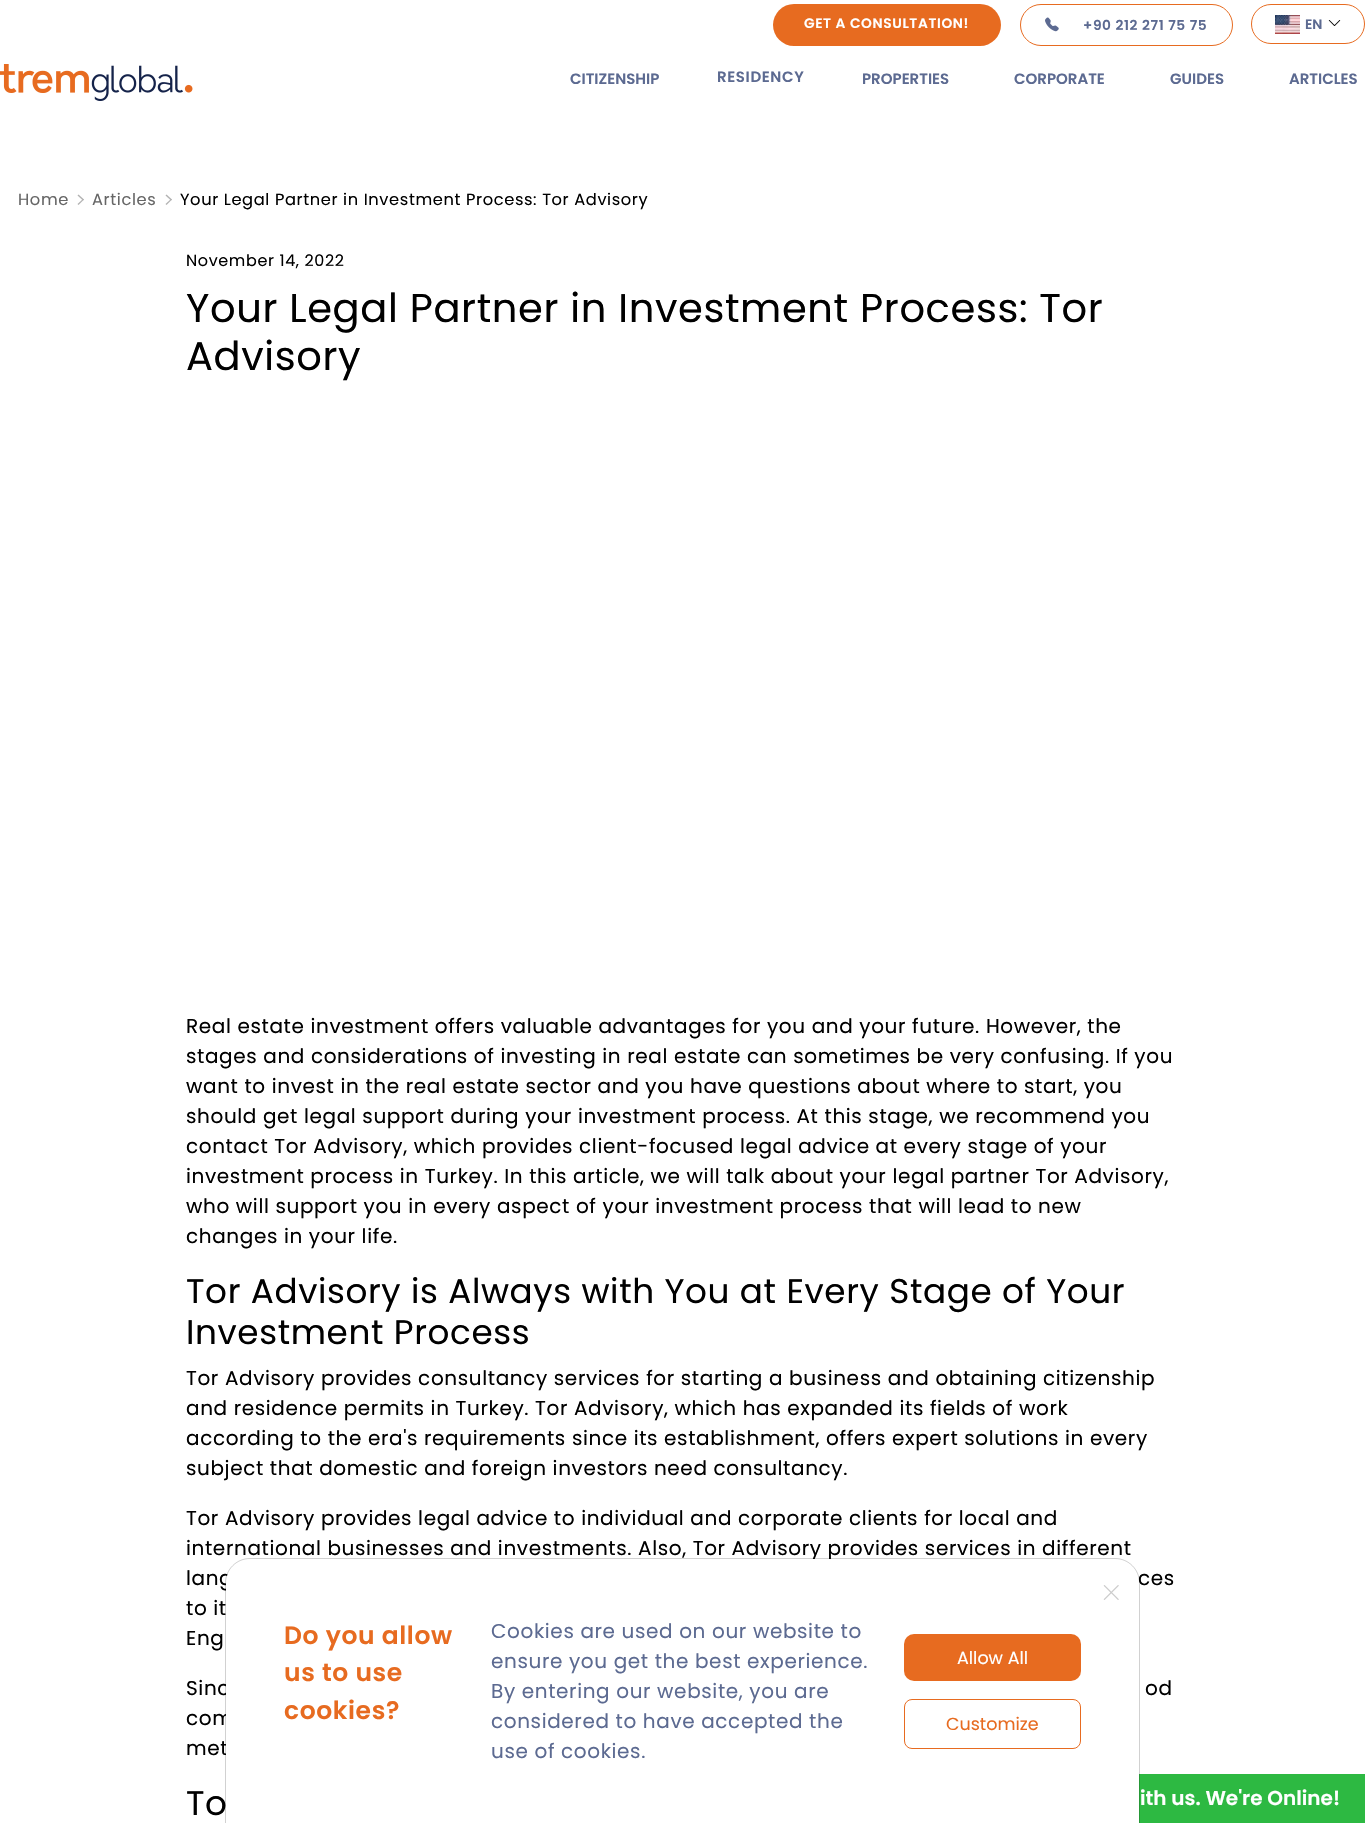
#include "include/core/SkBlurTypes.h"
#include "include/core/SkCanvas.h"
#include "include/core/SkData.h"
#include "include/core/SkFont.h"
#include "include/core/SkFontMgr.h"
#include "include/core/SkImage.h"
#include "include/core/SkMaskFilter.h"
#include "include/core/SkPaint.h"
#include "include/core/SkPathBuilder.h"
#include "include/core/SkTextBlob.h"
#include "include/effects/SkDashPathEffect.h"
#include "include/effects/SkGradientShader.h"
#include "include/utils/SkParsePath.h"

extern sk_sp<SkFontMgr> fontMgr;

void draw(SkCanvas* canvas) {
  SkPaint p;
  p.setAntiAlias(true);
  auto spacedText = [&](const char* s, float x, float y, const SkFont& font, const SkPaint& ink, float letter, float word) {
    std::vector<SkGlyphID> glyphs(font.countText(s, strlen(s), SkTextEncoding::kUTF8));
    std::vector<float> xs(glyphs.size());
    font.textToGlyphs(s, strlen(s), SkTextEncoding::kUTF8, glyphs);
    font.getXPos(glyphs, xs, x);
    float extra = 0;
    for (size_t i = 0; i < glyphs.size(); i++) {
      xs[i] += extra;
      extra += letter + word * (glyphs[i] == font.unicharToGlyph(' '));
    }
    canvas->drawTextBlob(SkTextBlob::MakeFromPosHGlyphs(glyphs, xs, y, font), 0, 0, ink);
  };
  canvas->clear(SK_ColorWHITE);
  p.setColor(SkColorSetRGB(231, 107, 32));
  canvas->drawRoundRect(SkRect::MakeLTRB(773, 4, 1001, 46), 21, 21, p);
  p.setStyle(SkPaint::kStroke_Style);
  p.setStrokeWidth(1);
  canvas->drawRoundRect(SkRect::MakeLTRB(1020.5f, 4.5f, 1232.5f, 45.5f), 20.5f, 20.5f, p);
  canvas->drawImageRect(SkImages::DeferredFromEncodedData(SkData::MakeFromFileName("images/1.png")), SkRect::MakeLTRB(1045, 17, 1059, 32), SkSamplingOptions());
  canvas->drawRoundRect(SkRect::MakeLTRB(1251.5f, 4.5f, 1364.5f, 43.5f), 19.5f, 19.5f, p);
  canvas->drawImageRect(SkImages::DeferredFromEncodedData(SkData::MakeFromFileName("images/2.png")), SkRect::MakeLTRB(1275, 15, 1300, 34), SkSamplingOptions());
  canvas->drawImageRect(SkImages::DeferredFromEncodedData(SkData::MakeFromFileName("images/3.png")), SkRect::MakeLTRB(1328, 20, 1341, 26), SkSamplingOptions());
  canvas->drawImageRect(SkImages::DeferredFromEncodedData(SkData::MakeFromFileName("images/4.png")), SkRect::MakeLTRB(0, 64, 193, 101), SkSamplingOptions());
  p.setStyle(SkPaint::kFill_Style);
  p.setColor(SkColorSetRGB(178, 178, 178));
  canvas->drawPath(SkPathBuilder().moveTo(78.5f, 194.5f).lineTo(84, 199.5f).lineTo(83, 200.5f).lineTo(77.5f, 195.5f).close().detach(), p);
  canvas->drawPath(SkPathBuilder().moveTo(83, 199).lineTo(84, 199.5f).lineTo(78.5f, 205).lineTo(77.5f, 204).close().detach(), p);
  canvas->drawPath(SkPathBuilder().moveTo(166.5f, 194.5f).lineTo(172, 199.5f).lineTo(171, 200.5f).lineTo(165.5f, 195.5f).close().detach(), p);
  canvas->drawPath(SkPathBuilder().moveTo(171, 199).lineTo(172, 199.5f).lineTo(166.5f, 205).lineTo(165.5f, 204).close().detach(), p);
  p.setColor(SkColorSetRGB(45, 185, 66));
  canvas->drawRect(SkRect::MakeLTRB(1139, 1774, 1365, 1823), p);
  SkFont font1(fontMgr->matchFamilyStyle("Poppins", SkFontStyle(600, SkFontStyle::kNormal_Width, SkFontStyle::kUpright_Slant)), 13.75f);
  font1.setSubpixel(true);
  p.setColor(SK_ColorWHITE);
  spacedText("GET A CONSULTATION!", 804, 28, font1, p, 0.62f, 0);
  p.setColor(SkColorSetRGB(92, 106, 145));
  spacedText("+90 212 271 75 75", 1083, 30, font1, p, 0.62f, 0);
  canvas->drawString("EN", 1305, 29, font1, p);
  SkFont font2(fontMgr->matchFamilyStyle("Poppins", SkFontStyle(600, SkFontStyle::kNormal_Width, SkFontStyle::kUpright_Slant)), 15);
  font2.setSubpixel(true);
  canvas->drawString("CITIZENSHIP", 570, 84, font2, p);
  spacedText("RESIDENCY", 717, 82, font2, p, 0.62f, 0);
  canvas->drawString("PROPERTIES", 862, 84, font2, p);
  canvas->drawString("CORPORATE", 1014, 84, font2, p);
  canvas->drawString("GUIDES", 1170, 84, font2, p);
  canvas->drawString("ARTICLES", 1289, 84, font2, p);
  SkFont font3(fontMgr->matchFamilyStyle("Poppins", SkFontStyle::Normal()), 16.25f);
  font3.setSubpixel(true);
  p.setColor(SkColorSetRGB(102, 102, 102));
  spacedText("Home", 18, 205, font3, p, 0.62f, 0);
  spacedText("Articles", 92, 205, font3, p, 0.62f, 0);
  p.setColor(SK_ColorBLACK);
  spacedText("Your Legal Partner in Investment Process: Tor Advisory", 180, 205, font3, p, 0.62f, 0);
  SkFont font4(fontMgr->matchFamilyStyle("Poppins", SkFontStyle::Normal()), 16);
  font4.setSubpixel(true);
  spacedText("November 14, 2022", 186, 266, font4, p, 0.62f, 0);
  SkFont font5(fontMgr->matchFamilyStyle("Poppins", SkFontStyle::Normal()), 40);
  font5.setSubpixel(true);
  spacedText("Your Legal Partner in Investment Process: Tor", 186, 322, font5, p, 0.62f, 0);
  spacedText("Advisory", 186, 370, font5, p, 0.62f, 0);
  SkFont font6(fontMgr->matchFamilyStyle("Poppins", SkFontStyle::Normal()), 20);
  font6.setSubpixel(true);
  spacedText("Real estate investment offers valuable advantages for you and your future. However, the", 186, 1033, font6, p, 0.62f, 0);
  spacedText("stages and considerations of investing in real estate can sometimes be very confusing. If you", 186, 1063, font6, p, 0.62f, 0);
  spacedText("want to invest in the real estate sector and you have questions about where to start, you", 186, 1093, font6, p, 0.62f, 0);
  spacedText("should get legal support during your investment process. At this stage, we recommend you", 186, 1123, font6, p, 0.62f, 0);
  spacedText("contact Tor Advisory, which provides client-focused legal advice at every stage of your", 186, 1153, font6, p, 0.62f, 0);
  spacedText("investment process in Turkey. In this article, we will talk about your legal partner Tor Advisory,", 186, 1183, font6, p, 0.62f, 0);
  spacedText("who will support you in every aspect of your investment process that will lead to new", 186, 1213, font6, p, 0.62f, 0);
  spacedText("changes in your life.", 186, 1243, font6, p, 0.62f, 0);
  SkFont font7(fontMgr->matchFamilyStyle("Poppins", SkFontStyle::Normal()), 34.2f);
  font7.setSubpixel(true);
  spacedText("Tor Advisory is Always with You at Every Stage of Your", 186, 1303, font7, p, 0.62f, 0);
  spacedText("Investment Process", 186, 1344, font7, p, 0.62f, 0);
  spacedText("Tor Advisory provides consultancy services for starting a business and obtaining citizenship", 186, 1385, font6, p, 0.62f, 0);
  spacedText("and residence permits in Turkey. Tor Advisory, which has expanded its fields of work", 186, 1415, font6, p, 0.62f, 0);
  spacedText("according to the era's requirements since its establishment, offers expert solutions in every", 186, 1445, font6, p, 0.62f, 0);
  spacedText("subject that domestic and foreign investors need consultancy.", 186, 1475, font6, p, 0.62f, 0);
  spacedText("Tor Advisory provides legal advice to individual and corporate clients for local and", 186, 1525, font6, p, 0.62f, 0);
  spacedText("international businesses and investments. Also, Tor Advisory provides services in different", 186, 1555, font6, p, 0.62f, 0);
  spacedText("lang", 186, 1585, font6, p, 0.62f, 0);
  spacedText("ces", 1138, 1585, font6, p, 0.62f, 0);
  spacedText("to it", 186, 1615, font6, p, 0.62f, 0);
  spacedText("Eng", 186, 1645, font6, p, 0.62f, 0);
  spacedText("Sinc", 186, 1695, font6, p, 0.62f, 0);
  spacedText("od", 1145, 1695, font6, p, 0.62f, 0);
  spacedText("com", 186, 1725, font6, p, 0.62f, 0);
  spacedText("met", 186, 1755, font6, p, 0.62f, 0);
  spacedText("To", 186, 1815, font7, p, 0.62f, 0);
  p.setColor(SK_ColorWHITE);
  canvas->drawPath(SkPathBuilder().moveTo(250, 1559).lineTo(1115, 1559).cubicTo(1128.5f, 1559, 1139, 1569.5f, 1139, 1583).lineTo(1139, 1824).lineTo(226, 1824).lineTo(226, 1583).cubicTo(226, 1569.5f, 236.5f, 1559, 250, 1559).close().detach(), p);
  p.setStyle(SkPaint::kStroke_Style);
  p.setColor(SkColorSetARGB(46, 0, 0, 0));
  canvas->drawPath(SkPathBuilder().moveTo(250, 1558.5f).lineTo(1115, 1558.5f).cubicTo(1128.5f, 1558.5f, 1139.5f, 1569.5f, 1139.5f, 1583).lineTo(1139.5f, 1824.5f).lineTo(225.5f, 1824.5f).lineTo(225.5f, 1583).cubicTo(225.5f, 1569.5f, 236.5f, 1558.5f, 250, 1558.5f).close().detach(), p);
  canvas->drawImageRect(SkImages::DeferredFromEncodedData(SkData::MakeFromFileName("images/5.png")), SkRect::MakeLTRB(1103, 1585, 1119, 1600), SkSamplingOptions());
  SkFont font8(fontMgr->matchFamilyStyle("Poppins", SkFontStyle(600, SkFontStyle::kNormal_Width, SkFontStyle::kUpright_Slant)), 25);
  font8.setSubpixel(true);
  p.setStyle(SkPaint::kFill_Style);
  p.setColor(SkColorSetRGB(231, 107, 32));
  spacedText("Do you allow", 284, 1644, font8, p, 0.62f, 0);
  spacedText("us to use", 284, 1681, font8, p, 0.62f, 0);
  spacedText("cookies?", 284, 1719, font8, p, 0.62f, 0);
  p.setColor(SkColorSetRGB(92, 106, 145));
  spacedText("Cookies are used on our website to", 491, 1638, font6, p, 0.62f, 0);
  spacedText("ensure you get the best experience.", 491, 1668, font6, p, 0.62f, 0);
  spacedText("By entering our website, you are", 491, 1698, font6, p, 0.62f, 0);
  spacedText("considered to have accepted the", 491, 1728, font6, p, 0.62f, 0);
  spacedText("use of cookies.", 491, 1758, font6, p, 0.62f, 0);
  p.setColor(SkColorSetRGB(231, 107, 32));
  canvas->drawRoundRect(SkRect::MakeLTRB(904, 1634, 1081, 1681), 10, 10, p);
  SkFont font9(fontMgr->matchFamilyStyle("Poppins", SkFontStyle::Normal()), 17.5f);
  font9.setSubpixel(true);
  p.setColor(SK_ColorWHITE);
  canvas->drawString("Allow All", 957, 1664, font9, p);
  p.setStyle(SkPaint::kStroke_Style);
  p.setColor(SkColorSetRGB(231, 107, 32));
  canvas->drawRoundRect(SkRect::MakeLTRB(904.5f, 1699.5f, 1080.5f, 1748.5f), 7.5f, 7.5f, p);
  p.setStyle(SkPaint::kFill_Style);
  canvas->drawString("Customize", 946, 1730, font9, p);
  SkFont font10(fontMgr->matchFamilyStyle("Poppins", SkFontStyle(600, SkFontStyle::kNormal_Width, SkFontStyle::kUpright_Slant)), 20);
  font10.setSubpixel(true);
  p.setColor(SK_ColorWHITE);
  canvas->drawString("ith us. We're Online!", 1140, 1805, font10, p);
}
